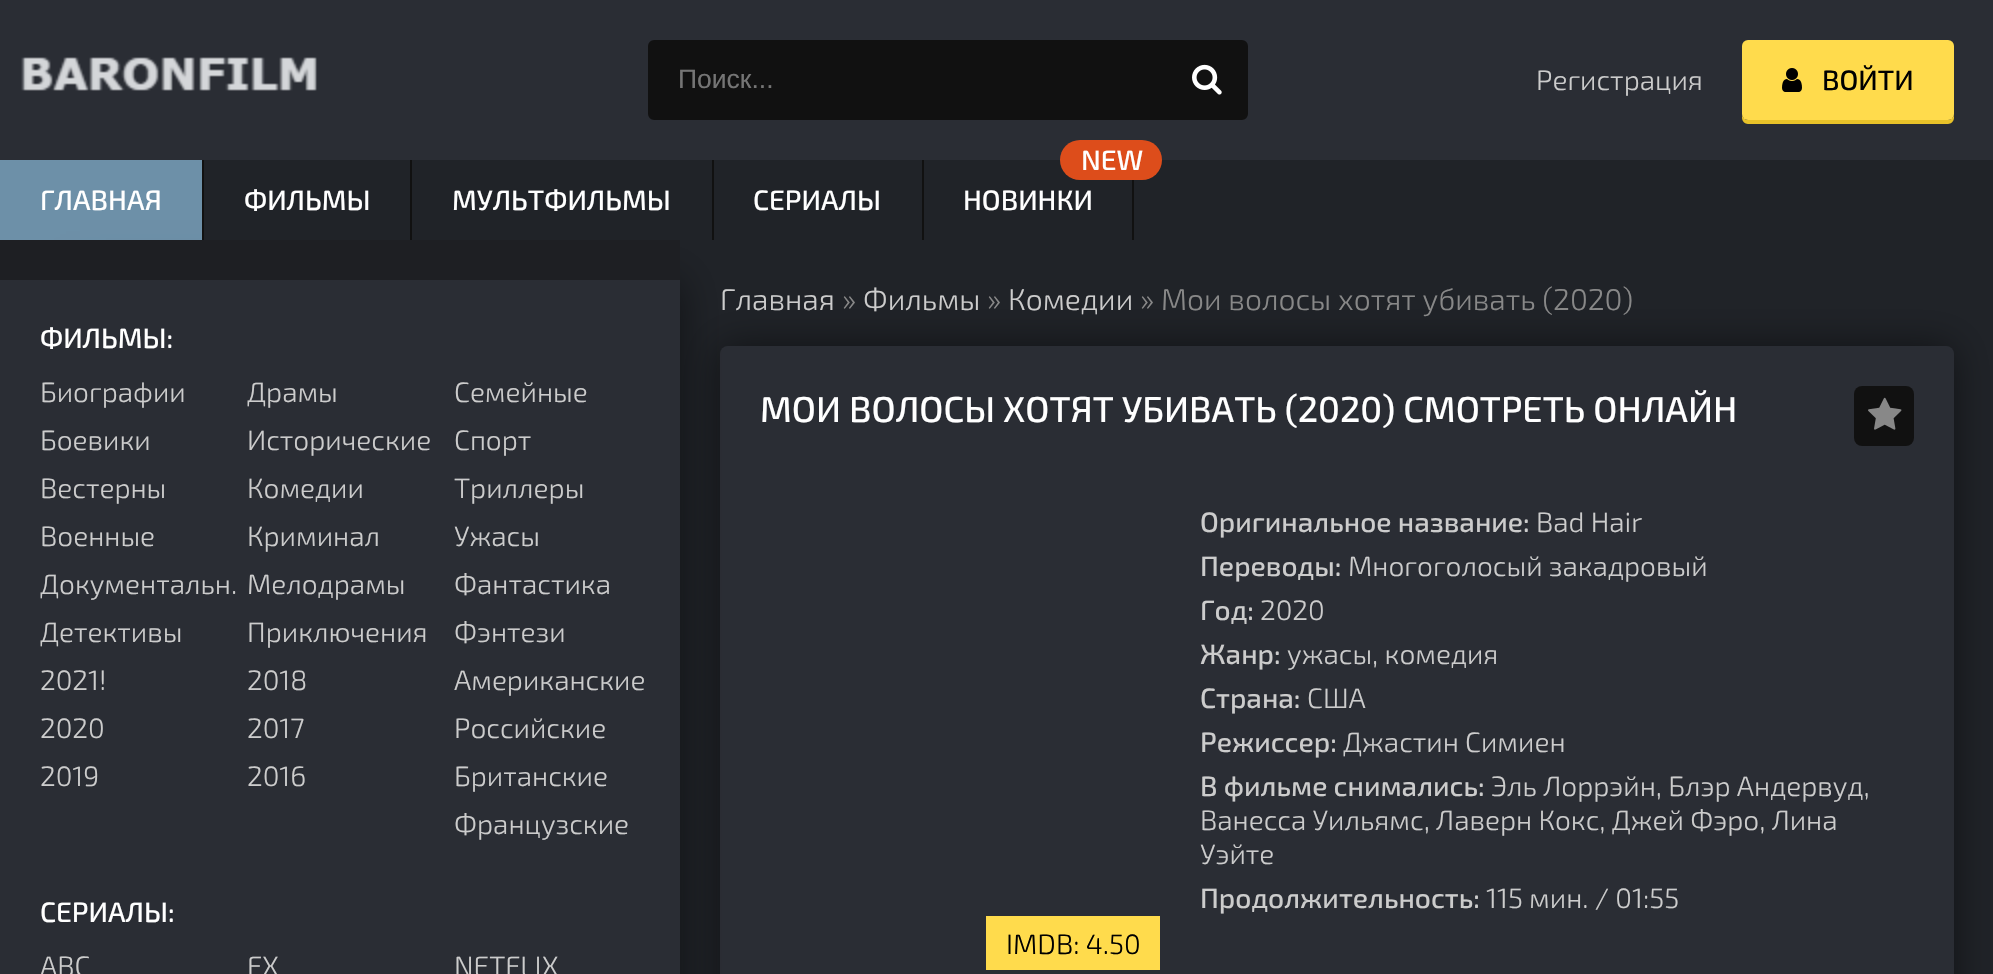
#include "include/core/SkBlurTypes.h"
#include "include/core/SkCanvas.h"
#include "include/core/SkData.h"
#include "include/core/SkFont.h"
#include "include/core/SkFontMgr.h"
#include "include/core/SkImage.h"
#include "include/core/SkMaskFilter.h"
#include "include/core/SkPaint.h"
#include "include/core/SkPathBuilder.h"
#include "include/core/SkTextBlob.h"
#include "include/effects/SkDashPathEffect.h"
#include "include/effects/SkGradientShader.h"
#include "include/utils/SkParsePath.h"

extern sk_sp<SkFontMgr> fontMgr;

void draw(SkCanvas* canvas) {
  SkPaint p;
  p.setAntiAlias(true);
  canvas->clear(SkColorSetRGB(32, 35, 40));
  p.setColor(SkColorSetRGB(42, 45, 52));
  canvas->drawRect(SkRect::MakeLTRB(0, 0, 1993, 160), p);
  canvas->drawImageRect(SkImages::DeferredFromEncodedData(SkData::MakeFromFileName("images/1.png")), SkRect::MakeLTRB(21, 57, 317, 91), SkSamplingOptions());
  p.setColor(SkColorSetRGB(17, 17, 17));
  canvas->drawRoundRect(SkRect::MakeLTRB(649, 41, 1247, 119), 5, 5, p);
  p.setStyle(SkPaint::kStroke_Style);
  p.setStrokeWidth(2);
  canvas->drawRoundRect(SkRect::MakeLTRB(649, 41, 1247, 119), 5, 5, p);
  canvas->drawImageRect(SkImages::DeferredFromEncodedData(SkData::MakeFromFileName("images/2.png")), SkRect::MakeLTRB(1192, 64, 1222, 95), SkSamplingOptions());
  p.setStyle(SkPaint::kFill_Style);
  p.setColor(SkColorSetRGB(232, 194, 41));
  canvas->drawPath(SkPathBuilder().moveTo(1742, 114).lineTo(1742, 118).cubicTo(1742, 121, 1745, 124, 1748, 124).lineTo(1948, 124).cubicTo(1951, 124, 1954, 121, 1954, 118).lineTo(1954, 114).cubicTo(1954, 117, 1951, 120, 1948, 120).lineTo(1748, 120).cubicTo(1745, 120, 1742, 117, 1742, 114).close().detach(), p);
  p.setColor(SkColorSetRGB(255, 219, 76));
  canvas->drawRoundRect(SkRect::MakeLTRB(1742, 40, 1954, 120), 6, 6, p);
  canvas->drawImageRect(SkImages::DeferredFromEncodedData(SkData::MakeFromFileName("images/3.png")), SkRect::MakeLTRB(1782, 68, 1802, 92), SkSamplingOptions());
  p.setColor(SkColorSetRGB(17, 17, 17));
  canvas->drawRect(SkRect::MakeLTRB(202, 160, 204, 240), p);
  p.setColor(SkColorSetRGB(109, 144, 168));
  canvas->drawRect(SkRect::MakeLTRB(0, 160, 202, 240), p);
  p.setColor(SkColorSetRGB(17, 17, 17));
  canvas->drawRect(SkRect::MakeLTRB(410, 160, 412, 240), p);
  canvas->drawRect(SkRect::MakeLTRB(712, 160, 714, 240), p);
  canvas->drawRect(SkRect::MakeLTRB(922, 160, 924, 240), p);
  canvas->drawRect(SkRect::MakeLTRB(1132, 180, 1134, 240), p);
  p.setColor(SkColorSetRGB(221, 77, 27));
  canvas->drawRoundRect(SkRect::MakeLTRB(1060, 140, 1162, 180), 20, 20, p);
  p.setColor(SkColorSetARGB(128, 0, 0, 0));
  p.setMaskFilter(SkMaskFilter::MakeBlur(kNormal_SkBlurStyle, 20));
  canvas->drawRoundRect(SkRect::MakeLTRB(720, 346, 1954, 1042), 8, 8, p);
  p.setMaskFilter(nullptr);
  p.setColor(SkColorSetRGB(42, 45, 52));
  canvas->drawRoundRect(SkRect::MakeLTRB(720, 346, 1954, 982), 8, 8, p);
  p.setColor(SkColorSetARGB(128, 0, 0, 0));
  p.setMaskFilter(SkMaskFilter::MakeBlur(kNormal_SkBlurStyle, 20));
  canvas->drawRect(SkRect::MakeLTRB(80, 280, 680, 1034), p);
  p.setMaskFilter(nullptr);
  p.setColor(SkColorSetRGB(42, 45, 52));
  canvas->drawRect(SkRect::MakeLTRB(0, 280, 680, 974), p);
  p.setColor(SkColorSetRGB(17, 17, 17));
  canvas->drawRoundRect(SkRect::MakeLTRB(1854, 386, 1914, 446), 8, 8, p);
  canvas->drawImageRect(SkImages::DeferredFromEncodedData(SkData::MakeFromFileName("images/4.png")), SkRect::MakeLTRB(1868, 397, 1902, 430), SkSamplingOptions());
  p.setColor(SkColorSetRGB(255, 219, 76));
  canvas->drawRect(SkRect::MakeLTRB(986, 916, 1160, 970), p);
  p.setColor(SkColorSetRGB(30, 31, 35));
  canvas->drawRect(SkRect::MakeLTRB(0, 240, 680, 280), p);
  SkFont font1(fontMgr->matchFamilyStyle("Liberation Sans", SkFontStyle::Normal()), 26.5f);
  font1.setSubpixel(true);
  p.setColor(SkColorSetRGB(117, 117, 117));
  canvas->drawString("Поиск...", 678, 88, font1, p);
  SkFont font2(fontMgr->matchFamilyStyle("Exo 2", SkFontStyle(300, SkFontStyle::kNormal_Width, SkFontStyle::kUpright_Slant)), 28);
  font2.setSubpixel(true);
  p.setColor(SkColorSetRGB(204, 204, 204));
  canvas->drawString("Регистрация", 1536, 90, font2, p);
  SkFont font3(fontMgr->matchFamilyStyle("Exo 2", SkFontStyle(500, SkFontStyle::kNormal_Width, SkFontStyle::kUpright_Slant)), 28);
  font3.setSubpixel(true);
  p.setColor(SK_ColorBLACK);
  canvas->drawString("ВОЙТИ", 1822, 90, font3, p);
  p.setColor(SK_ColorWHITE);
  canvas->drawString("ГЛАВНАЯ", 40, 210, font3, p);
  canvas->drawString("ФИЛЬМЫ", 244, 210, font3, p);
  canvas->drawString("МУЛЬТФИЛЬМЫ", 452, 210, font3, p);
  canvas->drawString("СЕРИАЛЫ", 753, 210, font3, p);
  canvas->drawString("NEW", 1081, 170, font3, p);
  canvas->drawString("НОВИНКИ", 963, 210, font3, p);
  SkFont font4(fontMgr->matchFamilyStyle("Exo 2", SkFontStyle(300, SkFontStyle::kNormal_Width, SkFontStyle::kUpright_Slant)), 30);
  font4.setSubpixel(true);
  p.setColor(SkColorSetRGB(204, 204, 204));
  canvas->drawString("Главная", 720, 310, font4, p);
  p.setColor(SkColorSetRGB(136, 136, 136));
  canvas->drawString("»", 842, 310, font4, p);
  p.setColor(SkColorSetRGB(204, 204, 204));
  canvas->drawString("Фильмы", 863, 310, font4, p);
  p.setColor(SkColorSetRGB(136, 136, 136));
  canvas->drawString("»", 987, 310, font4, p);
  p.setColor(SkColorSetRGB(204, 204, 204));
  canvas->drawString("Комедии", 1008, 310, font4, p);
  p.setColor(SkColorSetRGB(136, 136, 136));
  canvas->drawString("» Мои волосы хотят убивать (2020)", 1140, 310, font4, p);
  SkFont font5(fontMgr->matchFamilyStyle("Exo 2", SkFontStyle(500, SkFontStyle::kNormal_Width, SkFontStyle::kUpright_Slant)), 36);
  font5.setSubpixel(true);
  p.setColor(SK_ColorWHITE);
  canvas->drawString("МОИ ВОЛОСЫ ХОТЯТ УБИВАТЬ (2020) СМОТРЕТЬ ОНЛАЙН", 760, 422, font5, p);
  p.setColor(SkColorSetRGB(204, 204, 204));
  canvas->drawString("Оригинальное название:", 1200, 532, font3, p);
  canvas->drawString("Bad Hair", 1536, 532, font2, p);
  canvas->drawString("Переводы:", 1200, 576, font3, p);
  canvas->drawString("Многоголосый закадровый", 1348, 576, font2, p);
  canvas->drawString("Год:", 1200, 620, font3, p);
  canvas->drawString("2020", 1260, 620, font2, p);
  canvas->drawString("Жанр:", 1200, 664, font3, p);
  canvas->drawString("ужасы, комедия", 1287, 664, font2, p);
  canvas->drawString("Страна:", 1200, 708, font3, p);
  canvas->drawString("США", 1307, 708, font2, p);
  canvas->drawString("Режиссер:", 1200, 752, font3, p);
  canvas->drawString("Джастин Симиен", 1343, 752, font2, p);
  canvas->drawString("В фильме снимались:", 1200, 796, font3, p);
  canvas->drawString("Эль Лоррэйн, Блэр Андервуд,", 1491, 796, font2, p);
  canvas->drawString("Ванесса Уильямс, Лаверн Кокс, Джей Фэро, Лина", 1200, 830, font2, p);
  canvas->drawString("Уэйте", 1200, 864, font2, p);
  canvas->drawString("Продолжительность:", 1200, 908, font3, p);
  canvas->drawString("115 мин. / 01:55", 1486, 908, font2, p);
  p.setColor(SK_ColorBLACK);
  canvas->drawString("IMDB: 4.50", 1006, 954, font2, p);
  p.setColor(SK_ColorWHITE);
  canvas->drawString("ФИЛЬМЫ:", 40, 348, font3, p);
  p.setColor(SkColorSetRGB(204, 204, 204));
  canvas->drawString("Биографии", 40, 402, font2, p);
  canvas->drawString("Боевики", 40, 450, font2, p);
  canvas->drawString("Вестерны", 40, 498, font2, p);
  canvas->drawString("Военные", 40, 546, font2, p);
  canvas->drawString("Документальн.", 40, 594, font2, p);
  canvas->drawString("Детективы", 40, 642, font2, p);
  canvas->drawString("2021!", 40, 690, font2, p);
  canvas->drawString("2020", 40, 738, font2, p);
  canvas->drawString("2019", 40, 786, font2, p);
  canvas->drawString("Драмы", 247, 402, font2, p);
  canvas->drawString("Исторические", 247, 450, font2, p);
  canvas->drawString("Комедии", 247, 498, font2, p);
  canvas->drawString("Криминал", 247, 546, font2, p);
  canvas->drawString("Мелодрамы", 247, 594, font2, p);
  canvas->drawString("Приключения", 247, 642, font2, p);
  canvas->drawString("2018", 247, 690, font2, p);
  canvas->drawString("2017", 247, 738, font2, p);
  canvas->drawString("2016", 247, 786, font2, p);
  canvas->drawString("Семейные", 454, 402, font2, p);
  canvas->drawString("Спорт", 454, 450, font2, p);
  canvas->drawString("Триллеры", 454, 498, font2, p);
  canvas->drawString("Ужасы", 454, 546, font2, p);
  canvas->drawString("Фантастика", 454, 594, font2, p);
  canvas->drawString("Фэнтези", 454, 642, font2, p);
  canvas->drawString("Американские", 454, 690, font2, p);
  canvas->drawString("Российские", 454, 738, font2, p);
  canvas->drawString("Британские", 454, 786, font2, p);
  canvas->drawString("Французские", 454, 834, font2, p);
  p.setColor(SK_ColorWHITE);
  canvas->drawString("СЕРИАЛЫ:", 40, 922, font3, p);
  p.setColor(SkColorSetRGB(204, 204, 204));
  canvas->drawString("ABC", 40, 976, font2, p);
  canvas->drawString("FX", 247, 976, font2, p);
  canvas->drawString("NETFLIX", 454, 976, font2, p);
}
